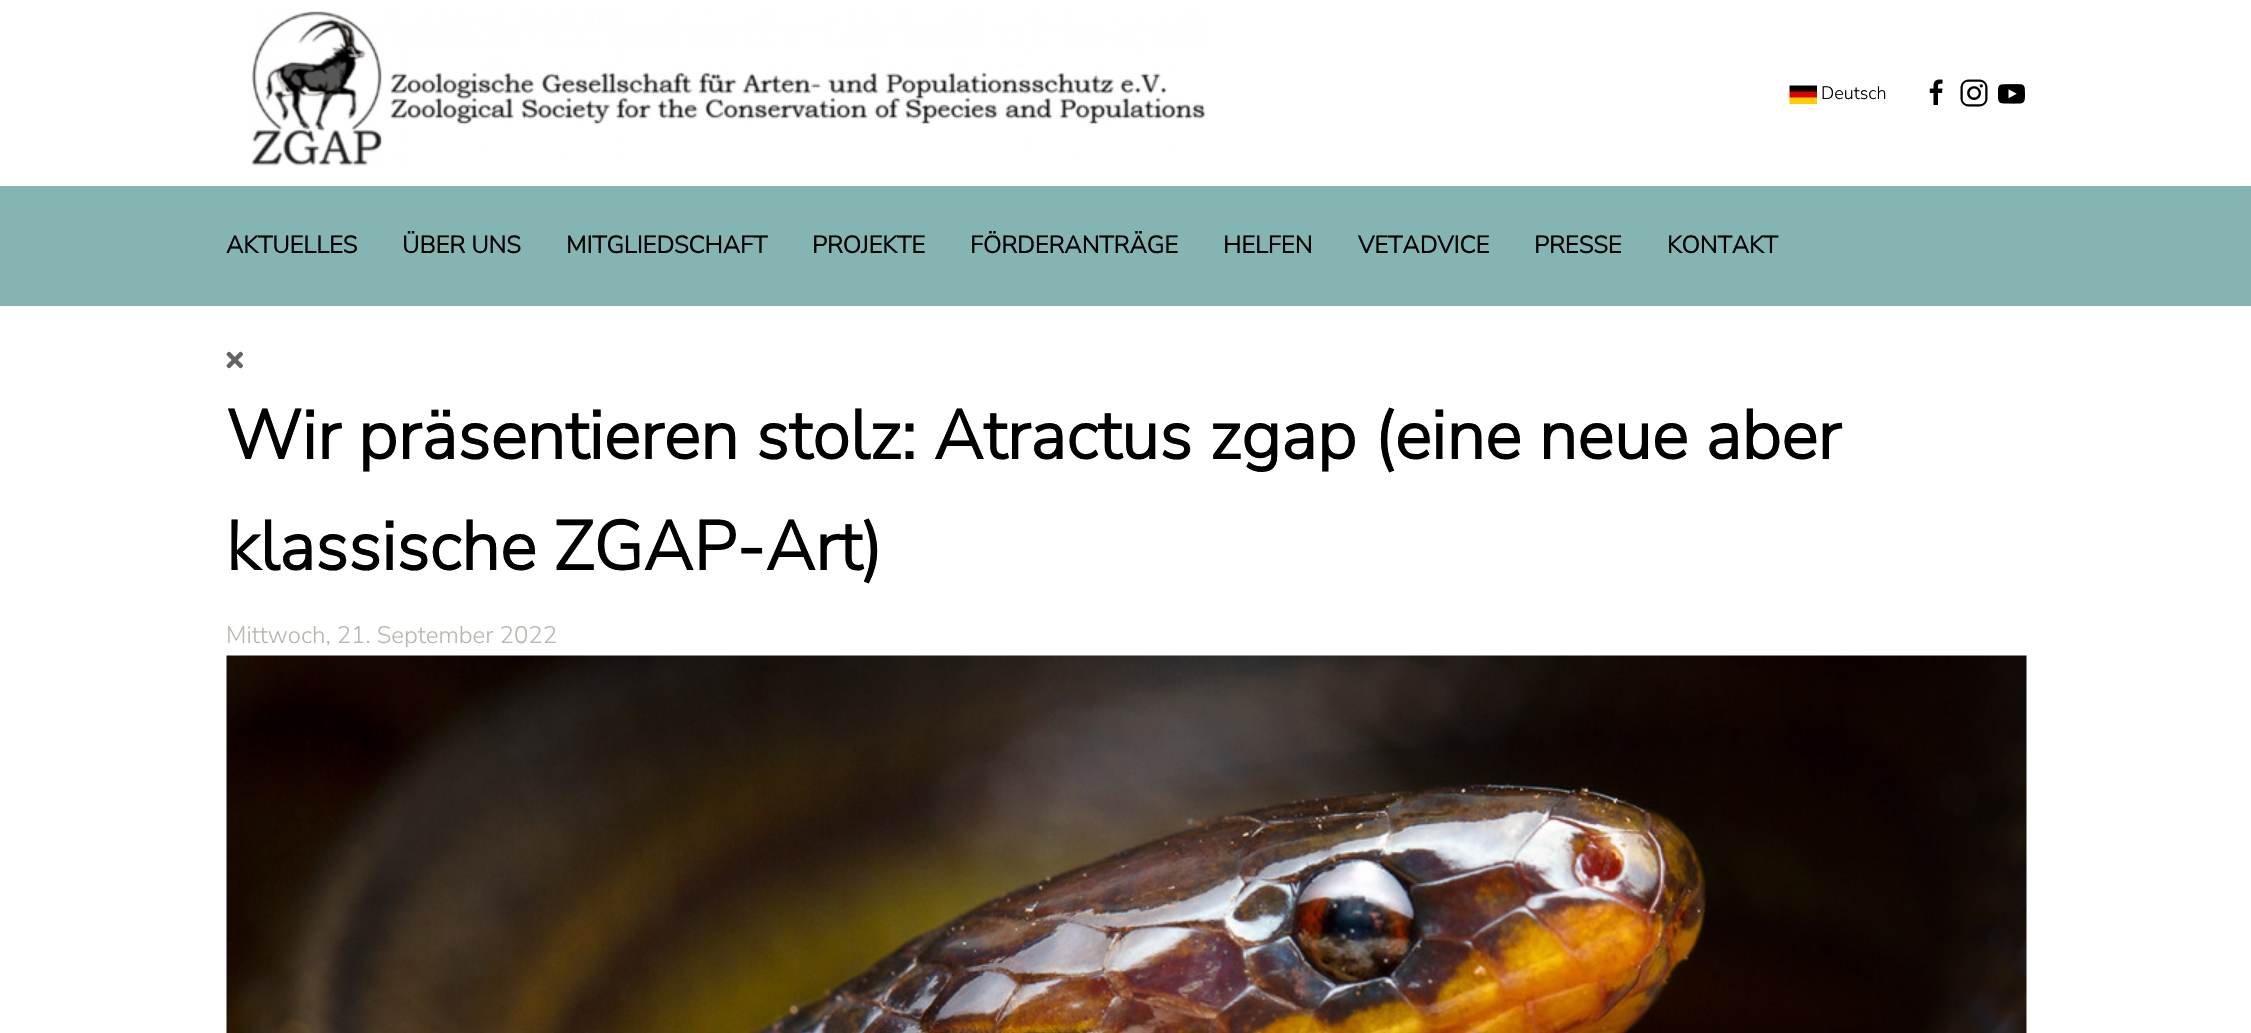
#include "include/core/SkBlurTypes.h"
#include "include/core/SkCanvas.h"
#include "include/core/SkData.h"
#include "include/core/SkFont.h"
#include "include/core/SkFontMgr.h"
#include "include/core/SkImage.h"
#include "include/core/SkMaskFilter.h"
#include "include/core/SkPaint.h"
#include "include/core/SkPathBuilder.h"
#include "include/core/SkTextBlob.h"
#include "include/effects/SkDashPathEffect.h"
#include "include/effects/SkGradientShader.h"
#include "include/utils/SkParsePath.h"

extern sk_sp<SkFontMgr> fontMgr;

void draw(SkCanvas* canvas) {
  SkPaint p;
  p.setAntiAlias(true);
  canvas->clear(SK_ColorWHITE);
  canvas->drawImageRect(SkImages::DeferredFromEncodedData(SkData::MakeFromFileName("images/1.png")), SkRect::MakeLTRB(251, 11, 1205, 166), SkSamplingOptions());
  canvas->drawImageRect(SkImages::DeferredFromEncodedData(SkData::MakeFromFileName("images/2.png")), SkRect::MakeLTRB(1789, 85, 1817, 104), SkSamplingOptions());
  canvas->drawImageRect(SkImages::DeferredFromEncodedData(SkData::MakeFromFileName("images/3.png")), SkRect::MakeLTRB(1929, 79, 1943, 105), SkSamplingOptions());
  canvas->drawImageRect(SkImages::DeferredFromEncodedData(SkData::MakeFromFileName("images/4.png")), SkRect::MakeLTRB(1960, 79, 1988, 107), SkSamplingOptions());
  canvas->drawImageRect(SkImages::DeferredFromEncodedData(SkData::MakeFromFileName("images/5.png")), SkRect::MakeLTRB(1998, 84, 2025, 104), SkSamplingOptions());
  p.setColor(SkColorSetRGB(132, 181, 178));
  canvas->drawRect(SkRect::MakeLTRB(0, 186, 2251, 306), p);
  canvas->drawImageRect(SkImages::DeferredFromEncodedData(SkData::MakeFromFileName("images/6.png")), SkRect::MakeLTRB(226, 351, 243, 369), SkSamplingOptions());
  canvas->drawImageRect(SkImages::DeferredFromEncodedData(SkData::MakeFromFileName("images/7.png")), SkRect::MakeLTRB(226, 655, 2027, 1033), SkSamplingOptions());
  SkFont font1(fontMgr->matchFamilyStyle("Nunito Sans", SkFontStyle(200, SkFontStyle::kNormal_Width, SkFontStyle::kUpright_Slant)), 18);
  font1.setSubpixel(true);
  p.setColor(SK_ColorBLACK);
  canvas->drawString("Deutsch", 1821, 99, font1, p);
  SkFont font2(fontMgr->matchFamilyStyle("Nunito Sans", SkFontStyle::Bold()), 24);
  font2.setSubpixel(true);
  canvas->drawString("AKTUELLES", 226, 253, font2, p);
  canvas->drawString("ÜBER UNS", 402, 253, font2, p);
  canvas->drawString("MITGLIEDSCHAFT", 566, 253, font2, p);
  canvas->drawString("PROJEKTE", 812, 253, font2, p);
  canvas->drawString("FÖRDERANTRÄGE", 970, 253, font2, p);
  canvas->drawString("HELFEN", 1223, 253, font2, p);
  canvas->drawString("VETADVICE", 1358, 253, font2, p);
  canvas->drawString("PRESSE", 1534, 253, font2, p);
  canvas->drawString("KONTAKT", 1667, 253, font2, p);
  SkFont font3(fontMgr->matchFamilyStyle("Nunito Sans", SkFontStyle::Bold()), 69);
  font3.setSubpixel(true);
  canvas->drawString("Wir präsentieren stolz: Atractus zgap (eine neue aber", 226, 459, font3, p);
  canvas->drawString("klassische ZGAP-Art)", 226, 570, font3, p);
  SkFont font4(fontMgr->matchFamilyStyle("Nunito Sans", SkFontStyle(200, SkFontStyle::kNormal_Width, SkFontStyle::kUpright_Slant)), 24);
  font4.setSubpixel(true);
  p.setColor(SkColorSetRGB(179, 185, 174));
  canvas->drawString("Mittwoch, 21. September 2022", 226, 643, font4, p);
}
